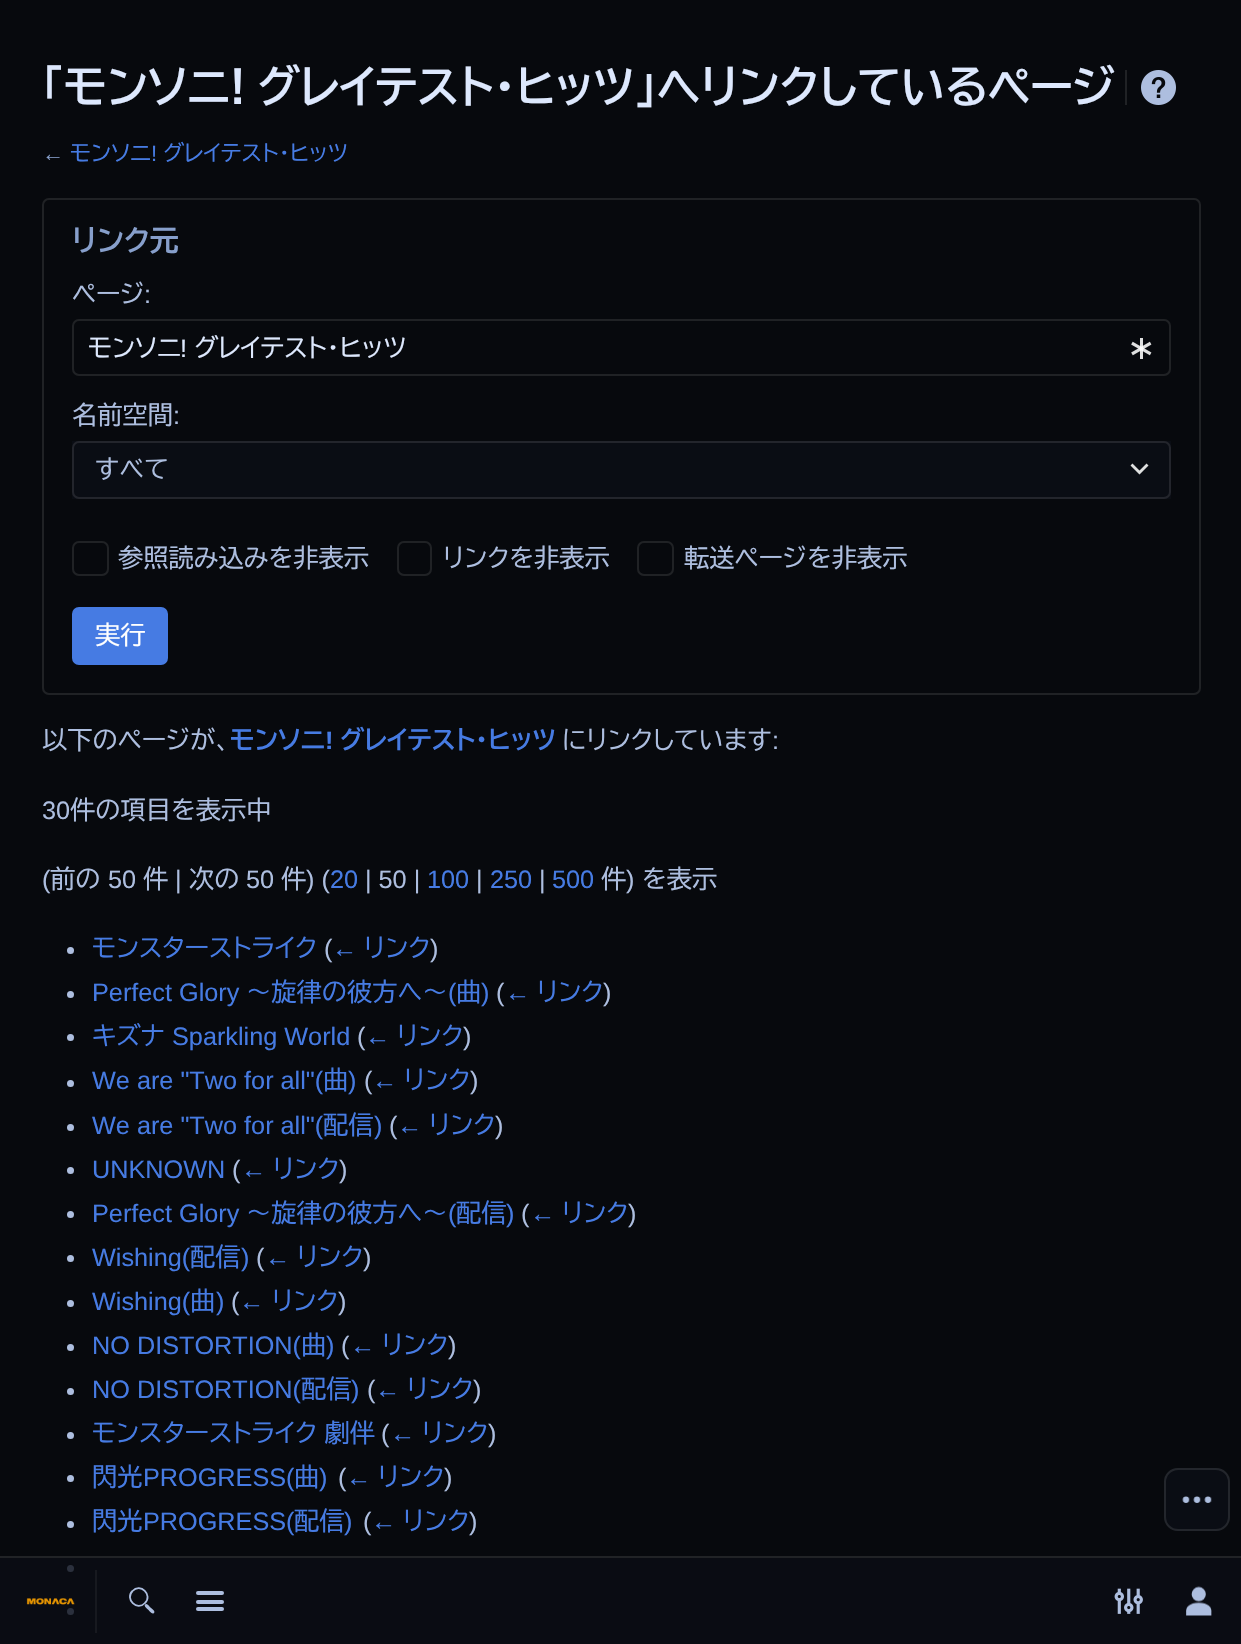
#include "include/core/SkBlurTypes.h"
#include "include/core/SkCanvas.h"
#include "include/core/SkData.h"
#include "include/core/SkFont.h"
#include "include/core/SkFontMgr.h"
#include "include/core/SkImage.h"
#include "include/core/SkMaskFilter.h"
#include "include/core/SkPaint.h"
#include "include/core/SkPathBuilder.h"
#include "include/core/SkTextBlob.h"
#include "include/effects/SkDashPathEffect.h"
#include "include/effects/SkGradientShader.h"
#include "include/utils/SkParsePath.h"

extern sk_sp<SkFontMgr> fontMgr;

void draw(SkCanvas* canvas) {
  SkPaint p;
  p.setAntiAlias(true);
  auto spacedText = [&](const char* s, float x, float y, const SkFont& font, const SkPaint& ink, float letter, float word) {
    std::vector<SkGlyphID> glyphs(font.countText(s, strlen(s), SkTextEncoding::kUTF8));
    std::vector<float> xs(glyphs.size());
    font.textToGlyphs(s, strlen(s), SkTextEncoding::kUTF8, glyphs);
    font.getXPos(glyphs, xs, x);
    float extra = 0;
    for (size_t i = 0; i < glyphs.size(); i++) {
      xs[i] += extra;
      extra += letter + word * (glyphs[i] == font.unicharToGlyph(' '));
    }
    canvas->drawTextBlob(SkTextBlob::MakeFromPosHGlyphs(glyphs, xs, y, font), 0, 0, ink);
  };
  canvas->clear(SkColorSetRGB(7, 9, 13));
  p.setColor(SkColorSetRGB(32, 34, 37));
  canvas->drawRect(SkRect::MakeLTRB(1125, 70, 1127, 105), p);
  canvas->drawImageRect(SkImages::DeferredFromEncodedData(SkData::MakeFromFileName("images/1.png")), SkRect::MakeLTRB(1141, 70, 1176, 105), SkSamplingOptions());
  p.setColor(SkColorSetRGB(10, 13, 20));
  canvas->drawRoundRect(SkRect::MakeLTRB(1164, 1468, 1230, 1531), 14, 14, p);
  p.setStyle(SkPaint::kStroke_Style);
  p.setStrokeWidth(2);
  p.setColor(SkColorSetARGB(26, 255, 255, 255));
  canvas->drawRoundRect(SkRect::MakeLTRB(1165, 1469, 1229, 1530), 13, 13, p);
  canvas->drawImageRect(SkImages::DeferredFromEncodedData(SkData::MakeFromFileName("images/2.png")), SkRect::MakeLTRB(1182, 1496, 1212, 1503), SkSamplingOptions());
  p.setColor(SkColorSetRGB(32, 34, 37));
  canvas->drawRoundRect(SkRect::MakeLTRB(43, 199, 1200, 694), 6, 6, p);
  canvas->drawRoundRect(SkRect::MakeLTRB(73, 320, 1170, 375), 6, 6, p);
  canvas->drawImageRect(SkImages::DeferredFromEncodedData(SkData::MakeFromFileName("images/3.png")), SkRect::MakeLTRB(1131, 338, 1152, 359), SkSamplingOptions());
  p.setStyle(SkPaint::kFill_Style);
  p.setColor(SkColorSetRGB(10, 13, 20));
  canvas->drawRect(SkRect::MakeLTRB(72, 441, 1171, 499), p);
  p.setStyle(SkPaint::kStroke_Style);
  p.setColor(SkColorSetRGB(35, 37, 44));
  canvas->drawRoundRect(SkRect::MakeLTRB(73, 442, 1170, 498), 6, 6, p);
  p.setStyle(SkPaint::kFill_Style);
  p.setColor(SkColorSetRGB(223, 224, 224));
  canvas->drawPath(SkPathBuilder().moveTo(1146.5f, 463.5f).lineTo(1139.5f, 470.5f).lineTo(1132.5f, 463.5f).lineTo(1130.5f, 465.5f).lineTo(1139.5f, 474.5f).lineTo(1148.5f, 465.5f).close().detach(), p);
  p.setStyle(SkPaint::kStroke_Style);
  p.setColor(SkColorSetRGB(32, 34, 37));
  canvas->drawRoundRect(SkRect::MakeLTRB(73, 542, 108, 575), 6, 6, p);
  canvas->drawRoundRect(SkRect::MakeLTRB(398, 542, 431, 575), 6, 6, p);
  canvas->drawRoundRect(SkRect::MakeLTRB(638, 542, 673, 575), 6, 6, p);
  p.setStyle(SkPaint::kFill_Style);
  p.setColor(SkColorSetRGB(70, 123, 227));
  canvas->drawRoundRect(SkRect::MakeLTRB(73, 608, 167, 664), 6, 6, p);
  p.setStyle(SkPaint::kStroke_Style);
  canvas->drawRoundRect(SkRect::MakeLTRB(73, 608, 167, 664), 6, 6, p);
  p.setStyle(SkPaint::kFill_Style);
  p.setColor(SkColorSetRGB(173, 190, 223));
  canvas->drawCircle(70.5f, 950.5f, 3.5f, p);
  canvas->drawCircle(70.5f, 994.5f, 3.5f, p);
  canvas->drawCircle(70.5f, 1037.5f, 3.5f, p);
  canvas->drawCircle(70.5f, 1083.5f, 3.5f, p);
  canvas->drawCircle(70.5f, 1127.5f, 3.5f, p);
  canvas->drawCircle(70.5f, 1170.5f, 3.5f, p);
  canvas->drawCircle(70.5f, 1214.5f, 3.5f, p);
  canvas->drawCircle(70.5f, 1258.5f, 3.5f, p);
  canvas->drawCircle(70.5f, 1303.5f, 3.5f, p);
  canvas->drawCircle(70.5f, 1347.5f, 3.5f, p);
  canvas->drawCircle(70.5f, 1391.5f, 3.5f, p);
  canvas->drawCircle(70.5f, 1435.5f, 3.5f, p);
  canvas->drawCircle(70.5f, 1478.5f, 3.5f, p);
  canvas->drawCircle(70.5f, 1524.5f, 3.5f, p);
  canvas->drawCircle(70.5f, 1568.5f, 3.5f, p);
  canvas->drawCircle(70.5f, 1611.5f, 3.5f, p);
  p.setColor(SkColorSetARGB(26, 255, 255, 255));
  canvas->drawRect(SkRect::MakeLTRB(0, 1556, 1241, 1558), p);
  p.setColor(SkColorSetARGB(204, 10, 13, 20));
  canvas->drawRect(SkRect::MakeLTRB(0, 1558, 1241, 1644), p);
  p.setColor(SkColorSetARGB(13, 255, 255, 255));
  canvas->drawRect(SkRect::MakeLTRB(95, 1570, 97, 1633), p);
  canvas->drawImageRect(SkImages::DeferredFromEncodedData(SkData::MakeFromFileName("images/4.png")), SkRect::MakeLTRB(26, 1598, 75, 1605), SkSamplingOptions());
  p.setColor(SkColorSetRGB(173, 190, 223));
  canvas->drawPath(SkPathBuilder().moveTo(145, 1604.5f).cubicTo(147, 1602.5f, 149.5f, 1606.5f, 150.5f, 1607.5f).cubicTo(151.5f, 1608.5f, 156, 1611.5f, 154, 1613).cubicTo(152, 1615, 149.5f, 1611, 148.5f, 1610).cubicTo(147.5f, 1609, 143.5f, 1606, 145, 1604.5f).close().detach(), p);
  p.setStyle(SkPaint::kStroke_Style);
  p.setStrokeWidth(1.8f);
  canvas->drawPath(SkPathBuilder().moveTo(132.5f, 1591).cubicTo(140.5f, 1582.5f, 153, 1595, 145, 1603).cubicTo(137, 1611.5f, 124.5f, 1599, 132.5f, 1591).close().detach(), p);
  p.setStyle(SkPaint::kFill_Style);
  canvas->drawRoundRect(SkRect::MakeLTRB(196, 1591, 224, 1595), 2, 2, p);
  canvas->drawRoundRect(SkRect::MakeLTRB(196, 1600, 224, 1604), 2, 2, p);
  canvas->drawRoundRect(SkRect::MakeLTRB(196, 1607, 224, 1611), 2, 2, p);
  canvas->drawImageRect(SkImages::DeferredFromEncodedData(SkData::MakeFromFileName("images/5.png")), SkRect::MakeLTRB(1114, 1588, 1143, 1614), SkSamplingOptions());
  canvas->drawImageRect(SkImages::DeferredFromEncodedData(SkData::MakeFromFileName("images/6.png")), SkRect::MakeLTRB(1186, 1586, 1212, 1616), SkSamplingOptions());
  SkFont font1(fontMgr->matchFamilyStyle("BIZ UDPGothic", SkFontStyle::Bold()), 44.1f);
  font1.setSubpixel(true);
  p.setColor(SkColorSetRGB(221, 232, 253));
  spacedText("「モンソニ! グレイテスト・ヒッツ」へリンクしているページ", 42, 103, font1, p, 0, -3);
  SkFont font2(fontMgr->matchFamilyStyle("Liberation Sans", SkFontStyle::Normal()), 22);
  font2.setSubpixel(true);
  p.setColor(SkColorSetRGB(135, 159, 203));
  canvas->drawString("←", 42, 161, font2, p);
  SkFont font3(fontMgr->matchFamilyStyle("BIZ UDPGothic", SkFontStyle::Normal()), 22);
  font3.setSubpixel(true);
  p.setColor(SkColorSetRGB(70, 123, 227));
  canvas->drawString("モンソニ", 70, 161, font3, p);
  canvas->drawString("!", 151, 161, font2, p);
  canvas->drawString("グレイテスト・ヒッツ", 163, 161, font3, p);
  SkFont font4(fontMgr->matchFamilyStyle("BIZ UDPGothic", SkFontStyle::Bold()), 29);
  font4.setSubpixel(true);
  p.setColor(SkColorSetRGB(135, 159, 203));
  canvas->drawString("リンク元", 72, 251, font4, p);
  SkFont font5(fontMgr->matchFamilyStyle("BIZ UDPGothic", SkFontStyle::Normal()), 25.25f);
  font5.setSubpixel(true);
  p.setColor(SkColorSetRGB(173, 190, 223));
  canvas->drawString("ページ", 72, 303, font5, p);
  SkFont font6(fontMgr->matchFamilyStyle("Liberation Sans", SkFontStyle::Normal()), 25.25f);
  font6.setSubpixel(true);
  canvas->drawString(":", 144, 303, font6, p);
  p.setColor(SkColorSetRGB(221, 232, 253));
  canvas->drawString("モンソニ", 88, 357, font5, p);
  canvas->drawString("!", 180, 357, font6, p);
  canvas->drawString("グレイテスト・ヒッツ", 194, 357, font5, p);
  p.setColor(SkColorSetRGB(173, 190, 223));
  canvas->drawString("名前空間", 72, 424, font5, p);
  canvas->drawString(":", 173, 424, font6, p);
  canvas->drawString("すべて", 95, 478, font5, p);
  canvas->drawString("参照読み込みを非表示", 118, 567, font5, p);
  canvas->drawString("リンクを非表示", 443, 567, font5, p);
  canvas->drawString("転送ページを非表示", 684, 567, font5, p);
  p.setColor(SK_ColorWHITE);
  canvas->drawString("実行", 95, 644, font5, p);
  p.setColor(SkColorSetRGB(173, 190, 223));
  canvas->drawString("以下のページが、", 42, 749, font5, p);
  SkFont font7(fontMgr->matchFamilyStyle("BIZ UDPGothic", SkFontStyle::Bold()), 25.25f);
  font7.setSubpixel(true);
  p.setColor(SkColorSetRGB(70, 123, 227));
  canvas->drawString("モンソニ", 230, 749, font7, p);
  SkFont font8(fontMgr->matchFamilyStyle("Liberation Sans", SkFontStyle::Bold()), 25.25f);
  font8.setSubpixel(true);
  canvas->drawString("!", 325, 749, font8, p);
  canvas->drawString("グレイテスト・ヒッツ", 340, 749, font7, p);
  p.setColor(SkColorSetRGB(173, 190, 223));
  canvas->drawString("にリンクしています", 562, 749, font5, p);
  canvas->drawString(":", 772, 749, font6, p);
  canvas->drawString("30", 42, 819, font6, p);
  canvas->drawString("件の項目を表示中", 70, 819, font5, p);
  canvas->drawString("(", 42, 888, font6, p);
  canvas->drawString("前の", 50, 888, font5, p);
  canvas->drawString("50", 108, 888, font6, p);
  canvas->drawString("件", 143, 888, font5, p);
  canvas->drawString("|", 175, 888, font6, p);
  canvas->drawString("次の", 189, 888, font5, p);
  canvas->drawString("50", 246, 888, font6, p);
  canvas->drawString("件", 281, 888, font5, p);
  canvas->drawString(") (", 306, 888, font6, p);
  p.setColor(SkColorSetRGB(70, 123, 227));
  canvas->drawString("20", 330, 888, font6, p);
  p.setColor(SkColorSetRGB(173, 190, 223));
  canvas->drawString("| 50 |", 365, 888, font6, p);
  p.setColor(SkColorSetRGB(70, 123, 227));
  canvas->drawString("100", 427, 888, font6, p);
  p.setColor(SkColorSetRGB(173, 190, 223));
  canvas->drawString("|", 476, 888, font6, p);
  p.setColor(SkColorSetRGB(70, 123, 227));
  canvas->drawString("250", 490, 888, font6, p);
  p.setColor(SkColorSetRGB(173, 190, 223));
  canvas->drawString("|", 539, 888, font6, p);
  p.setColor(SkColorSetRGB(70, 123, 227));
  canvas->drawString("500", 552, 888, font6, p);
  p.setColor(SkColorSetRGB(173, 190, 223));
  canvas->drawString("件", 601, 888, font5, p);
  canvas->drawString(")", 626, 888, font6, p);
  canvas->drawString("を表示", 642, 888, font5, p);
  p.setColor(SkColorSetRGB(70, 123, 227));
  canvas->drawString("モンスターストライク", 92, 957, font5, p);
  p.setColor(SkColorSetRGB(173, 190, 223));
  canvas->drawString("(", 324, 957, font6, p);
  p.setColor(SkColorSetRGB(70, 123, 227));
  canvas->drawString("←", 332, 957, font6, p);
  canvas->drawString("リンク", 364, 957, font5, p);
  p.setColor(SkColorSetRGB(173, 190, 223));
  canvas->drawString(")", 430, 957, font6, p);
  p.setColor(SkColorSetRGB(70, 123, 227));
  canvas->drawString("Perfect Glory", 92, 1001, font6, p);
  canvas->drawString("～旋律の彼方へ～ 曲", 246, 1001, font5, p);
  canvas->drawString("リンク", 537, 1001, font5, p);
  canvas->drawString("(", 448, 1001, font6, p);
  canvas->drawString(")", 481, 1001, font6, p);
  p.setColor(SkColorSetRGB(173, 190, 223));
  canvas->drawString("(", 496, 1001, font6, p);
  p.setColor(SkColorSetRGB(70, 123, 227));
  canvas->drawString("←", 505, 1001, font6, p);
  p.setColor(SkColorSetRGB(173, 190, 223));
  canvas->drawString(")", 603, 1001, font6, p);
  p.setColor(SkColorSetRGB(70, 123, 227));
  canvas->drawString("キズナ", 92, 1045, font5, p);
  canvas->drawString("Sparkling World", 172, 1045, font6, p);
  p.setColor(SkColorSetRGB(173, 190, 223));
  canvas->drawString("(", 357, 1045, font6, p);
  p.setColor(SkColorSetRGB(70, 123, 227));
  canvas->drawString("←", 365, 1045, font6, p);
  canvas->drawString("リンク", 397, 1045, font5, p);
  p.setColor(SkColorSetRGB(173, 190, 223));
  canvas->drawString(")", 463, 1045, font6, p);
  p.setColor(SkColorSetRGB(70, 123, 227));
  canvas->drawString("We are \"Two for all\"(", 92, 1089, font6, p);
  canvas->drawString("曲", 323, 1089, font5, p);
  canvas->drawString(")", 348, 1089, font6, p);
  p.setColor(SkColorSetRGB(173, 190, 223));
  canvas->drawString("(", 364, 1089, font6, p);
  p.setColor(SkColorSetRGB(70, 123, 227));
  canvas->drawString("←", 372, 1089, font6, p);
  canvas->drawString("リンク", 404, 1089, font5, p);
  p.setColor(SkColorSetRGB(173, 190, 223));
  canvas->drawString(")", 470, 1089, font6, p);
  p.setColor(SkColorSetRGB(70, 123, 227));
  canvas->drawString("We are \"Two for all\"(", 92, 1134, font6, p);
  canvas->drawString("配信", 323, 1134, font5, p);
  canvas->drawString(")", 374, 1134, font6, p);
  p.setColor(SkColorSetRGB(173, 190, 223));
  canvas->drawString("(", 389, 1134, font6, p);
  p.setColor(SkColorSetRGB(70, 123, 227));
  canvas->drawString("←", 397, 1134, font6, p);
  canvas->drawString("リンク", 429, 1134, font5, p);
  p.setColor(SkColorSetRGB(173, 190, 223));
  canvas->drawString(")", 495, 1134, font6, p);
  p.setColor(SkColorSetRGB(70, 123, 227));
  canvas->drawString("UNKNOWN", 92, 1178, font6, p);
  p.setColor(SkColorSetRGB(173, 190, 223));
  canvas->drawString("(", 232, 1178, font6, p);
  p.setColor(SkColorSetRGB(70, 123, 227));
  canvas->drawString("←", 241, 1178, font6, p);
  canvas->drawString("リンク", 273, 1178, font5, p);
  p.setColor(SkColorSetRGB(173, 190, 223));
  canvas->drawString(")", 339, 1178, font6, p);
  p.setColor(SkColorSetRGB(70, 123, 227));
  canvas->drawString("Perfect Glory", 92, 1222, font6, p);
  canvas->drawString("～旋律の彼方へ～ 配信", 246, 1222, font5, p);
  canvas->drawString("リンク", 562, 1222, font5, p);
  canvas->drawString("(", 448, 1222, font6, p);
  canvas->drawString(")", 506, 1222, font6, p);
  p.setColor(SkColorSetRGB(173, 190, 223));
  canvas->drawString("(", 521, 1222, font6, p);
  p.setColor(SkColorSetRGB(70, 123, 227));
  canvas->drawString("←", 530, 1222, font6, p);
  p.setColor(SkColorSetRGB(173, 190, 223));
  canvas->drawString(")", 628, 1222, font6, p);
  p.setColor(SkColorSetRGB(70, 123, 227));
  canvas->drawString("Wishing(", 92, 1266, font6, p);
  canvas->drawString("配信", 190, 1266, font5, p);
  canvas->drawString(")", 241, 1266, font6, p);
  p.setColor(SkColorSetRGB(173, 190, 223));
  canvas->drawString("(", 256, 1266, font6, p);
  p.setColor(SkColorSetRGB(70, 123, 227));
  canvas->drawString("←", 265, 1266, font6, p);
  canvas->drawString("リンク", 297, 1266, font5, p);
  p.setColor(SkColorSetRGB(173, 190, 223));
  canvas->drawString(")", 363, 1266, font6, p);
  p.setColor(SkColorSetRGB(70, 123, 227));
  canvas->drawString("Wishing(", 92, 1310, font6, p);
  canvas->drawString("曲", 190, 1310, font5, p);
  canvas->drawString(")", 216, 1310, font6, p);
  p.setColor(SkColorSetRGB(173, 190, 223));
  canvas->drawString("(", 231, 1310, font6, p);
  p.setColor(SkColorSetRGB(70, 123, 227));
  canvas->drawString("←", 239, 1310, font6, p);
  canvas->drawString("リンク", 272, 1310, font5, p);
  p.setColor(SkColorSetRGB(173, 190, 223));
  canvas->drawString(")", 338, 1310, font6, p);
  p.setColor(SkColorSetRGB(70, 123, 227));
  canvas->drawString("NO DISTORTION(", 92, 1354, font6, p);
  canvas->drawString("曲", 301, 1354, font5, p);
  canvas->drawString(")", 326, 1354, font6, p);
  p.setColor(SkColorSetRGB(173, 190, 223));
  canvas->drawString("(", 341, 1354, font6, p);
  p.setColor(SkColorSetRGB(70, 123, 227));
  canvas->drawString("←", 350, 1354, font6, p);
  canvas->drawString("リンク", 382, 1354, font5, p);
  p.setColor(SkColorSetRGB(173, 190, 223));
  canvas->drawString(")", 448, 1354, font6, p);
  p.setColor(SkColorSetRGB(70, 123, 227));
  canvas->drawString("NO DISTORTION(", 92, 1398, font6, p);
  canvas->drawString("配信", 301, 1398, font5, p);
  canvas->drawString(")", 351, 1398, font6, p);
  p.setColor(SkColorSetRGB(173, 190, 223));
  canvas->drawString("(", 367, 1398, font6, p);
  p.setColor(SkColorSetRGB(70, 123, 227));
  canvas->drawString("←", 375, 1398, font6, p);
  canvas->drawString("リンク", 407, 1398, font5, p);
  p.setColor(SkColorSetRGB(173, 190, 223));
  canvas->drawString(")", 473, 1398, font6, p);
  p.setColor(SkColorSetRGB(70, 123, 227));
  spacedText("モンスターストライク 劇伴", 92, 1442, font5, p, 0, -1);
  p.setColor(SkColorSetRGB(173, 190, 223));
  canvas->drawString("(", 381, 1442, font6, p);
  p.setColor(SkColorSetRGB(70, 123, 227));
  canvas->drawString("←", 390, 1442, font6, p);
  canvas->drawString("リンク", 422, 1442, font5, p);
  p.setColor(SkColorSetRGB(173, 190, 223));
  canvas->drawString(")", 488, 1442, font6, p);
  p.setColor(SkColorSetRGB(70, 123, 227));
  canvas->drawString("閃光", 92, 1486, font5, p);
  canvas->drawString("PROGRESS(", 143, 1486, font6, p);
  canvas->drawString("曲", 294, 1486, font5, p);
  canvas->drawString(")", 319, 1486, font6, p);
  p.setColor(SkColorSetRGB(173, 190, 223));
  canvas->drawString("(", 338, 1486, font6, p);
  p.setColor(SkColorSetRGB(70, 123, 227));
  canvas->drawString("←", 346, 1486, font6, p);
  canvas->drawString("リンク", 378, 1486, font5, p);
  p.setColor(SkColorSetRGB(173, 190, 223));
  canvas->drawString(")", 444, 1486, font6, p);
  p.setColor(SkColorSetRGB(70, 123, 227));
  canvas->drawString("閃光", 92, 1530, font5, p);
  canvas->drawString("PROGRESS(", 143, 1530, font6, p);
  canvas->drawString("配信", 294, 1530, font5, p);
  canvas->drawString(")", 344, 1530, font6, p);
  p.setColor(SkColorSetRGB(173, 190, 223));
  canvas->drawString("(", 363, 1530, font6, p);
  p.setColor(SkColorSetRGB(70, 123, 227));
  canvas->drawString("←", 371, 1530, font6, p);
  canvas->drawString("リンク", 403, 1530, font5, p);
  p.setColor(SkColorSetRGB(173, 190, 223));
  canvas->drawString(")", 469, 1530, font6, p);
}
